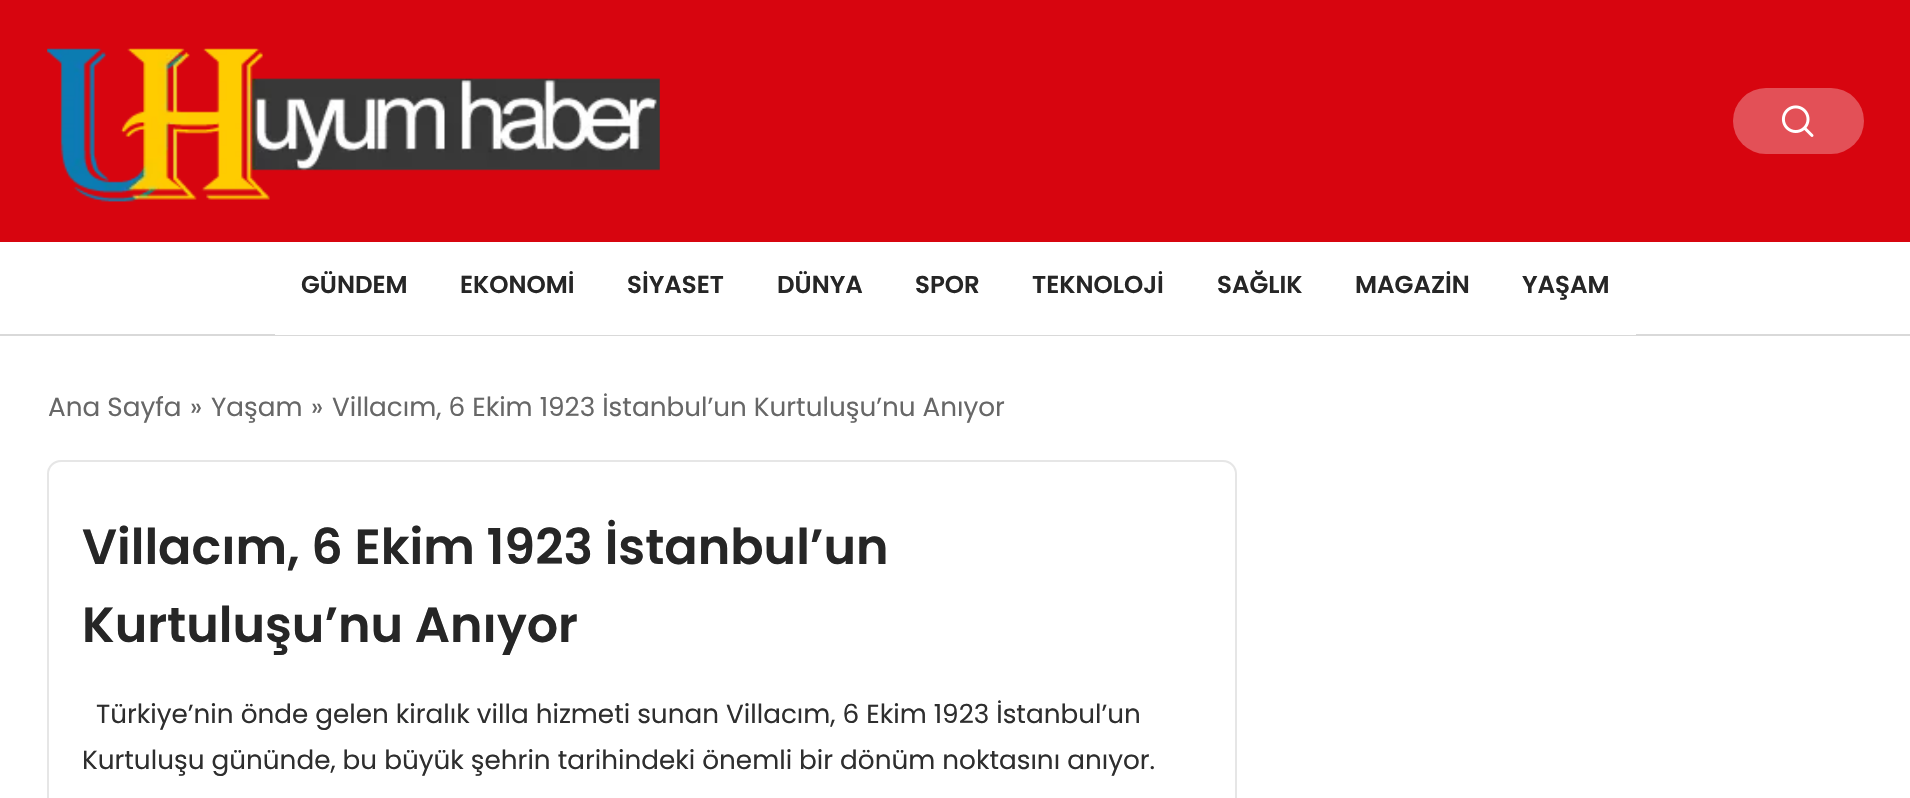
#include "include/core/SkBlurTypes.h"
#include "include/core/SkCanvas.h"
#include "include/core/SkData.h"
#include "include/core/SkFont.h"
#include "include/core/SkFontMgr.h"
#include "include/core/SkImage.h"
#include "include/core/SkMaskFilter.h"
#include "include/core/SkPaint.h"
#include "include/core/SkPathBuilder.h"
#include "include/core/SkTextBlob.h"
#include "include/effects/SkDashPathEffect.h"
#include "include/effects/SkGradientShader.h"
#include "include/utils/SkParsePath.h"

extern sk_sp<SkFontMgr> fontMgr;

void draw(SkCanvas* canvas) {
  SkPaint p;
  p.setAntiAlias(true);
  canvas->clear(SK_ColorWHITE);
  p.setColor(SkColorSetRGB(215, 5, 15));
  canvas->drawRect(SkRect::MakeLTRB(0, 0, 1910, 242), p);
  canvas->drawImageRect(SkImages::DeferredFromEncodedData(SkData::MakeFromFileName("images/1.png")), SkRect::MakeLTRB(47, 48, 660, 202), SkSamplingOptions());
  p.setColor(SkColorSetRGB(227, 80, 87));
  canvas->drawRoundRect(SkRect::MakeLTRB(1733, 88, 1864, 154), 33, 33, p);
  canvas->drawImageRect(SkImages::DeferredFromEncodedData(SkData::MakeFromFileName("images/2.png")), SkRect::MakeLTRB(1781, 105, 1814, 137), SkSamplingOptions());
  p.setColor(SkColorSetRGB(217, 217, 217));
  canvas->drawRect(SkRect::MakeLTRB(0, 334, 1910, 336), p);
  p.setColor(SK_ColorWHITE);
  canvas->drawRect(SkRect::MakeLTRB(275, 334, 1636, 335), p);
  p.setStyle(SkPaint::kStroke_Style);
  p.setStrokeWidth(2);
  p.setColor(SkColorSetRGB(230, 230, 230));
  canvas->drawRoundRect(SkRect::MakeLTRB(48, 461, 1236, 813), 13, 13, p);
  SkFont font1(fontMgr->matchFamilyStyle("Poppins", SkFontStyle(600, SkFontStyle::kNormal_Width, SkFontStyle::kUpright_Slant)), 24.5f);
  font1.setSubpixel(true);
  p.setStyle(SkPaint::kFill_Style);
  p.setColor(SkColorSetRGB(38, 38, 38));
  canvas->drawString("GÜNDEM", 301, 293, font1, p);
  canvas->drawString("EKONOMİ", 460, 293, font1, p);
  canvas->drawString("SİYASET", 627, 293, font1, p);
  canvas->drawString("DÜNYA", 777, 293, font1, p);
  canvas->drawString("SPOR", 915, 293, font1, p);
  canvas->drawString("TEKNOLOJİ", 1032, 293, font1, p);
  canvas->drawString("SAĞLIK", 1217, 293, font1, p);
  canvas->drawString("MAGAZİN", 1355, 293, font1, p);
  canvas->drawString("YAŞAM", 1522, 293, font1, p);
  SkFont font2(fontMgr->matchFamilyStyle("Poppins", SkFontStyle::Normal()), 26.25f);
  font2.setSubpixel(true);
  p.setColor(SkColorSetRGB(103, 103, 103));
  canvas->drawString("Ana Sayfa", 48, 416, font2, p);
  canvas->drawString("»", 190, 416, font2, p);
  canvas->drawString("Yaşam", 211, 416, font2, p);
  canvas->drawString("»", 311, 416, font2, p);
  canvas->drawString("Villacım, 6 Ekim 1923 İstanbul’un Kurtuluşu’nu Anıyor", 332, 416, font2, p);
  SkFont font3(fontMgr->matchFamilyStyle("Poppins", SkFontStyle(600, SkFontStyle::kNormal_Width, SkFontStyle::kUpright_Slant)), 49.25f);
  font3.setSubpixel(true);
  p.setColor(SkColorSetRGB(38, 38, 38));
  canvas->drawString("Villacım, 6 Ekim 1923 İstanbul’un", 82, 564, font3, p);
  canvas->drawString("Kurtuluşu’nu Anıyor", 82, 642, font3, p);
  p.setColor(SkColorSetRGB(46, 46, 46));
  canvas->drawString("Türkiye’nin önde gelen kiralık villa hizmeti sunan Villacım, 6 Ekim 1923 İstanbul’un", 96, 723, font2, p);
  canvas->drawString("Kurtuluşu gününde, bu büyük şehrin tarihindeki önemli bir dönüm noktasını anıyor.", 82, 769, font2, p);
}
